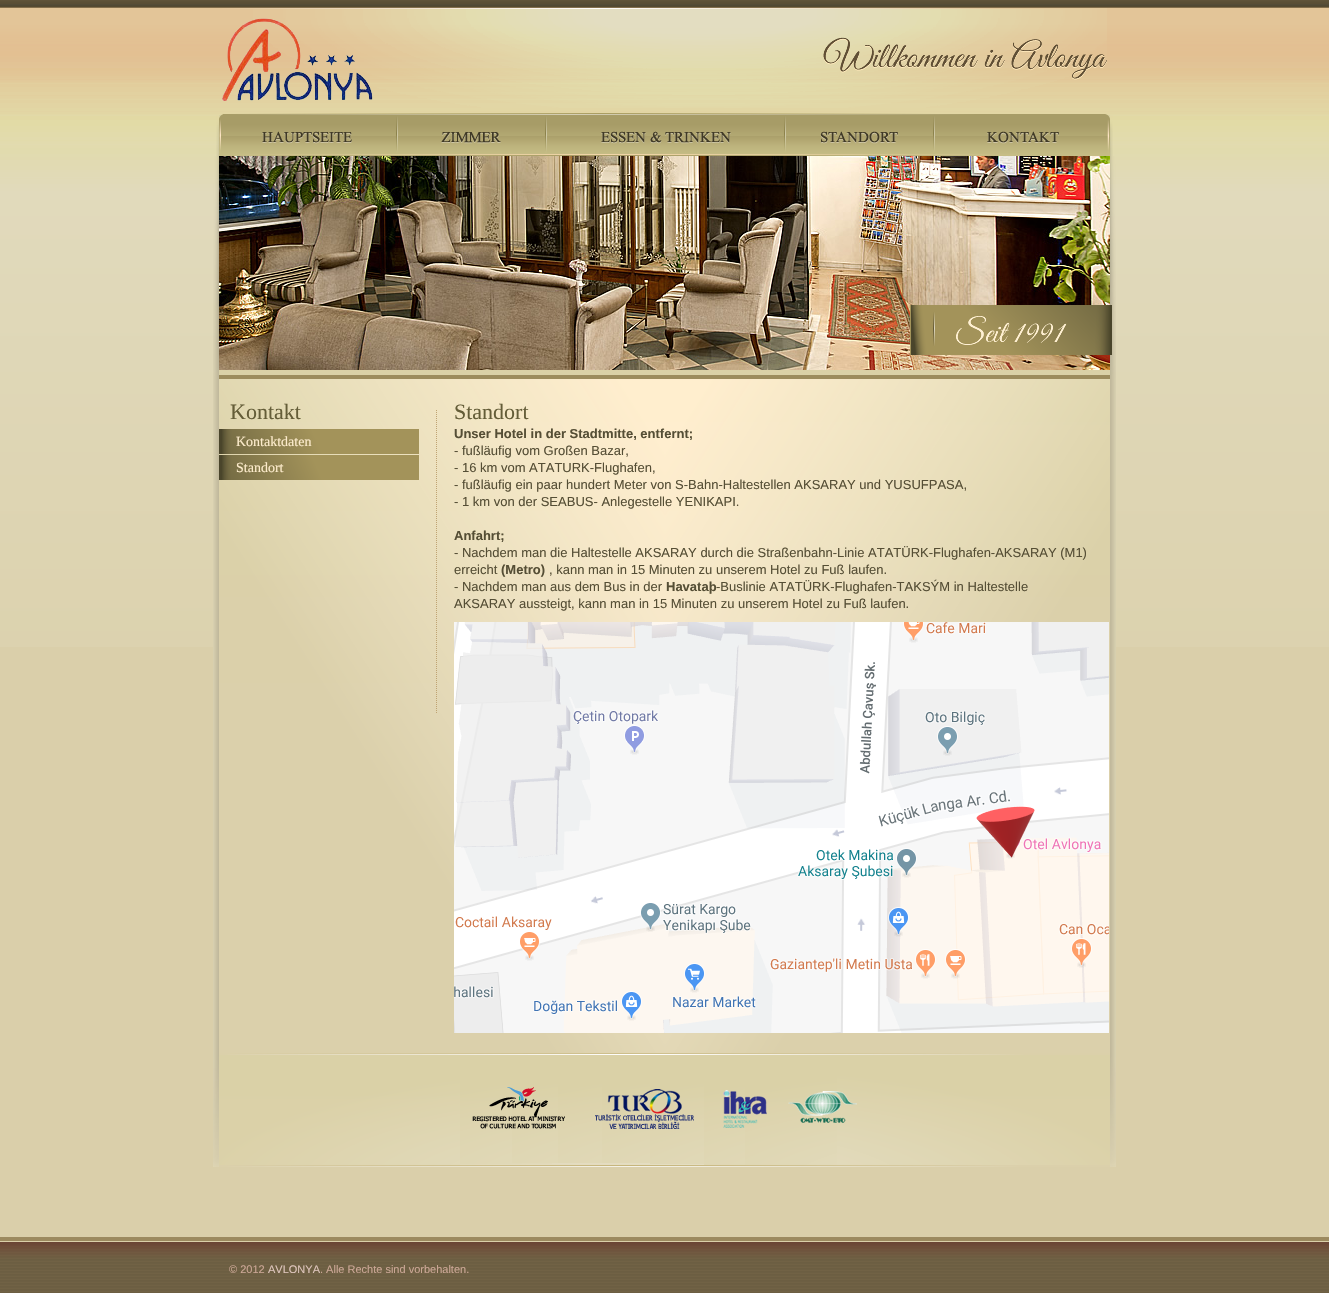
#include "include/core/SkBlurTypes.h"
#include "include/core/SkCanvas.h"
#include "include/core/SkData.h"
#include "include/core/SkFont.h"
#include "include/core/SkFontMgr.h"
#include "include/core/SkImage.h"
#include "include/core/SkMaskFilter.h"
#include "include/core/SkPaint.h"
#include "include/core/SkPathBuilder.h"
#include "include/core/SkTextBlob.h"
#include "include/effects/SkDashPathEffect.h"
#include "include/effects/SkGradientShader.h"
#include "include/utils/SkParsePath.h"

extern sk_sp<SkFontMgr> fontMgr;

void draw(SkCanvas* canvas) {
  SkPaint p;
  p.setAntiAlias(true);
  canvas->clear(SkColorSetRGB(218, 207, 170));
  canvas->drawImageRect(SkImages::DeferredFromEncodedData(SkData::MakeFromFileName("images/1.png")), SkRect::MakeLTRB(0, 0, 1329, 647), SkSamplingOptions());
  canvas->drawImageRect(SkImages::DeferredFromEncodedData(SkData::MakeFromFileName("images/2.png")), SkRect::MakeLTRB(222, 8, 1107, 108), SkSamplingOptions());
  canvas->drawImageRect(SkImages::DeferredFromEncodedData(SkData::MakeFromFileName("images/3.png")), SkRect::MakeLTRB(216, 113, 1113, 156), SkSamplingOptions());
  canvas->drawImageRect(SkImages::DeferredFromEncodedData(SkData::MakeFromFileName("images/4.png")), SkRect::MakeLTRB(219, 114, 397, 156), SkSamplingOptions());
  canvas->drawImageRect(SkImages::DeferredFromEncodedData(SkData::MakeFromFileName("images/5.png")), SkRect::MakeLTRB(397, 114, 546, 156), SkSamplingOptions());
  canvas->drawImageRect(SkImages::DeferredFromEncodedData(SkData::MakeFromFileName("images/6.png")), SkRect::MakeLTRB(546, 114, 785, 156), SkSamplingOptions());
  canvas->drawImageRect(SkImages::DeferredFromEncodedData(SkData::MakeFromFileName("images/7.png")), SkRect::MakeLTRB(785, 114, 934, 156), SkSamplingOptions());
  canvas->drawImageRect(SkImages::DeferredFromEncodedData(SkData::MakeFromFileName("images/8.png")), SkRect::MakeLTRB(934, 114, 1110, 156), SkSamplingOptions());
  canvas->drawImageRect(SkImages::DeferredFromEncodedData(SkData::MakeFromFileName("images/9.png")), SkRect::MakeLTRB(213, 156, 1116, 370), SkSamplingOptions());
  canvas->drawImageRect(SkImages::DeferredFromEncodedData(SkData::MakeFromFileName("images/10.png")), SkRect::MakeLTRB(219, 156, 1110, 370), SkSamplingOptions());
  canvas->drawImageRect(SkImages::DeferredFromEncodedData(SkData::MakeFromFileName("images/11.png")), SkRect::MakeLTRB(910, 305, 1112, 355), SkSamplingOptions());
  canvas->drawImageRect(SkImages::DeferredFromEncodedData(SkData::MakeFromFileName("images/12.png")), SkRect::MakeLTRB(213, 370, 1116, 379), SkSamplingOptions());
  canvas->drawImageRect(SkImages::DeferredFromEncodedData(SkData::MakeFromFileName("images/13.png")), SkRect::MakeLTRB(213, 379, 1116, 1053), SkSamplingOptions());
  canvas->drawImageRect(SkImages::DeferredFromEncodedData(SkData::MakeFromFileName("images/14.png")), SkRect::MakeLTRB(219, 379, 1110, 1053), SkSamplingOptions());
  canvas->drawImageRect(SkImages::DeferredFromEncodedData(SkData::MakeFromFileName("images/15.png")), SkRect::MakeLTRB(219, 429, 419, 454), SkSamplingOptions());
  canvas->drawImageRect(SkImages::DeferredFromEncodedData(SkData::MakeFromFileName("images/15.png")), SkRect::MakeLTRB(219, 455, 419, 480), SkSamplingOptions());
  canvas->drawImageRect(SkImages::DeferredFromEncodedData(SkData::MakeFromFileName("images/16.png")), SkRect::MakeLTRB(436, 410, 437, 713), SkSamplingOptions());
  canvas->drawImageRect(SkImages::DeferredFromEncodedData(SkData::MakeFromFileName("images/17.png")), SkRect::MakeLTRB(454, 622, 1109, 1033), SkSamplingOptions());
  canvas->drawImageRect(SkImages::DeferredFromEncodedData(SkData::MakeFromFileName("images/18.png")), SkRect::MakeLTRB(213, 1053, 1116, 1167), SkSamplingOptions());
  canvas->drawImageRect(SkImages::DeferredFromEncodedData(SkData::MakeFromFileName("images/19.png")), SkRect::MakeLTRB(0, 1237, 1329, 1293), SkSamplingOptions());
  SkFont font1(fontMgr->matchFamilyStyle("Liberation Serif", SkFontStyle::Normal()), 22);
  font1.setSubpixel(true);
  p.setColor(SkColorSetRGB(100, 93, 56));
  canvas->drawString("Kontakt", 230, 419, font1, p);
  SkFont font2(fontMgr->matchFamilyStyle("Liberation Serif", SkFontStyle::Normal()), 14);
  font2.setSubpixel(true);
  p.setColor(SkColorSetRGB(253, 236, 204));
  canvas->drawString("Kontaktdaten", 236, 446, font2, p);
  canvas->drawString("Standort", 236, 472, font2, p);
  p.setColor(SkColorSetRGB(100, 93, 56));
  canvas->drawString("Standort", 454, 419, font1, p);
  SkFont font3(fontMgr->matchFamilyStyle("Liberation Sans", SkFontStyle::Bold()), 13);
  font3.setSubpixel(true);
  p.setColor(SkColorSetRGB(85, 78, 53));
  canvas->drawString("Unser Hotel in der Stadtmitte, entfernt;", 454, 438, font3, p);
  SkFont font4(fontMgr->matchFamilyStyle("Liberation Sans", SkFontStyle::Normal()), 13);
  font4.setSubpixel(true);
  canvas->drawString("- fußläufig vom Großen Bazar,", 454, 455, font4, p);
  canvas->drawString("- 16 km vom ATATURK-Flughafen,", 454, 472, font4, p);
  canvas->drawString("- fußläufig ein paar hundert Meter von S-Bahn-Haltestellen AKSARAY und YUSUFPASA,", 454, 489, font4, p);
  canvas->drawString("- 1 km von der SEABUS- Anlegestelle YENIKAPI.", 454, 506, font4, p);
  canvas->drawString("Anfahrt;", 454, 540, font3, p);
  canvas->drawString("- Nachdem man die Haltestelle AKSARAY durch die Straßenbahn-Linie ATATÜRK-Flughafen-AKSARAY (M1)", 454, 557, font4, p);
  canvas->drawString("erreicht", 454, 574, font4, p);
  canvas->drawString("(Metro)", 501, 574, font3, p);
  canvas->drawString(", kann man in 15 Minuten zu unserem Hotel zu Fuß laufen.", 549, 574, font4, p);
  canvas->drawString("- Nachdem man aus dem Bus in der", 454, 591, font4, p);
  canvas->drawString("Havataþ", 666, 591, font3, p);
  canvas->drawString("-Buslinie ATATÜRK-Flughafen-TAKSÝM in Haltestelle", 716, 591, font4, p);
  canvas->drawString("AKSARAY aussteigt, kann man in 15 Minuten zu unserem Hotel zu Fuß laufen.", 454, 608, font4, p);
  SkFont font5(fontMgr->matchFamilyStyle("Liberation Sans", SkFontStyle::Normal()), 11);
  font5.setSubpixel(true);
  p.setColor(SkColorSetRGB(204, 167, 150));
  canvas->drawString("© 2012", 229, 1273, font5, p);
  p.setColor(SkColorSetRGB(223, 198, 189));
  canvas->drawString("AVLONYA", 268, 1273, font5, p);
  p.setColor(SkColorSetRGB(204, 167, 150));
  canvas->drawString(". Alle Rechte sind vorbehalten.", 320, 1273, font5, p);
}
